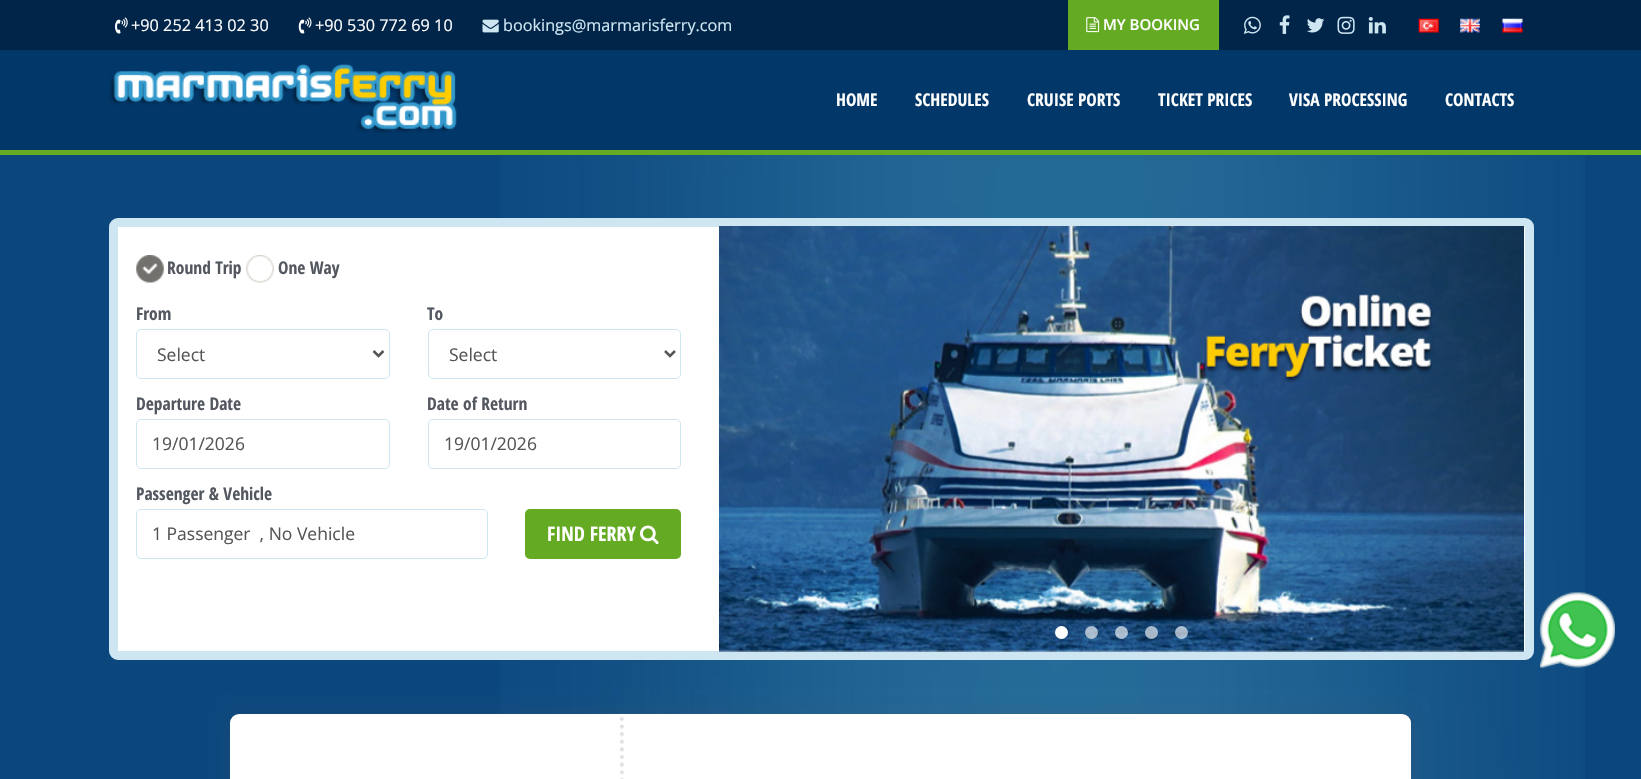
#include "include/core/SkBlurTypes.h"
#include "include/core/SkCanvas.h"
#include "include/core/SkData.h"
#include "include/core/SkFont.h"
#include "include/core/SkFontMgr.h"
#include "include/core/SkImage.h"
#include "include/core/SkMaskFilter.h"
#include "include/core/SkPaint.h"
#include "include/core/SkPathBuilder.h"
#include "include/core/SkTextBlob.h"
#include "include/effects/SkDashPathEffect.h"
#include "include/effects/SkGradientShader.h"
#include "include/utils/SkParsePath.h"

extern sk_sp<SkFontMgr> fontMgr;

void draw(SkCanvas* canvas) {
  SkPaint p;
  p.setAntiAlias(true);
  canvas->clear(SkColorSetRGB(1, 37, 73));
  canvas->drawImageRect(SkImages::DeferredFromEncodedData(SkData::MakeFromFileName("images/1.png")), SkRect::MakeLTRB(115, 17, 128, 34), SkSamplingOptions());
  canvas->drawImageRect(SkImages::DeferredFromEncodedData(SkData::MakeFromFileName("images/2.png")), SkRect::MakeLTRB(298, 17, 312, 34), SkSamplingOptions());
  canvas->drawImageRect(SkImages::DeferredFromEncodedData(SkData::MakeFromFileName("images/3.png")), SkRect::MakeLTRB(482, 19, 499, 33), SkSamplingOptions());
  p.setColor(SkColorSetRGB(100, 170, 35));
  canvas->drawRect(SkRect::MakeLTRB(1068, 0, 1219, 50), p);
  canvas->drawImageRect(SkImages::DeferredFromEncodedData(SkData::MakeFromFileName("images/4.png")), SkRect::MakeLTRB(1086, 17, 1100, 33), SkSamplingOptions());
  canvas->drawImageRect(SkImages::DeferredFromEncodedData(SkData::MakeFromFileName("images/5.png")), SkRect::MakeLTRB(1243, 16, 1261, 34), SkSamplingOptions());
  canvas->drawImageRect(SkImages::DeferredFromEncodedData(SkData::MakeFromFileName("images/6.png")), SkRect::MakeLTRB(1279, 15, 1290, 34), SkSamplingOptions());
  canvas->drawImageRect(SkImages::DeferredFromEncodedData(SkData::MakeFromFileName("images/7.png")), SkRect::MakeLTRB(1306, 18, 1325, 33), SkSamplingOptions());
  canvas->drawImageRect(SkImages::DeferredFromEncodedData(SkData::MakeFromFileName("images/8.png")), SkRect::MakeLTRB(1337, 16, 1355, 34), SkSamplingOptions());
  canvas->drawImageRect(SkImages::DeferredFromEncodedData(SkData::MakeFromFileName("images/9.png")), SkRect::MakeLTRB(1368, 17, 1386, 34), SkSamplingOptions());
  canvas->drawImageRect(SkImages::DeferredFromEncodedData(SkData::MakeFromFileName("images/10.png")), SkRect::MakeLTRB(1418, 18, 1439, 33), SkSamplingOptions());
  canvas->drawImageRect(SkImages::DeferredFromEncodedData(SkData::MakeFromFileName("images/11.png")), SkRect::MakeLTRB(1460, 18, 1480, 33), SkSamplingOptions());
  canvas->drawImageRect(SkImages::DeferredFromEncodedData(SkData::MakeFromFileName("images/12.png")), SkRect::MakeLTRB(1502, 18, 1523, 33), SkSamplingOptions());
  p.setColor(SkColorSetRGB(2, 55, 105));
  canvas->drawRect(SkRect::MakeLTRB(0, 50, 1641, 150), p);
  p.setColor(SkColorSetRGB(100, 170, 35));
  canvas->drawRect(SkRect::MakeLTRB(0, 150, 1641, 155), p);
  canvas->drawImageRect(SkImages::DeferredFromEncodedData(SkData::MakeFromFileName("images/13.png")), SkRect::MakeLTRB(109, 63, 457, 133), SkSamplingOptions());
  p.setColor(SkColorSetRGB(11, 71, 125));
  canvas->drawRect(SkRect::MakeLTRB(0, 155, 1641, 779), p);
  canvas->drawImageRect(SkImages::DeferredFromEncodedData(SkData::MakeFromFileName("images/14.png")), SkRect::MakeLTRB(500, 155, 1585, 779), SkSamplingOptions());
  p.setColor(SK_ColorWHITE);
  canvas->drawRoundRect(SkRect::MakeLTRB(113.5f, 222.5f, 1529.5f, 655.5f), 4.5f, 4.5f, p);
  p.setStyle(SkPaint::kStroke_Style);
  p.setStrokeWidth(9);
  p.setColor(SkColorSetRGB(205, 230, 242));
  canvas->drawRoundRect(SkRect::MakeLTRB(113.5f, 222.5f, 1529.5f, 655.5f), 4.5f, 4.5f, p);
  canvas->drawImageRect(SkImages::DeferredFromEncodedData(SkData::MakeFromFileName("images/15.png")), SkRect::MakeLTRB(136, 255, 164, 283), SkSamplingOptions());
  canvas->drawImageRect(SkImages::DeferredFromEncodedData(SkData::MakeFromFileName("images/16.png")), SkRect::MakeLTRB(246, 255, 274, 283), SkSamplingOptions());
  p.setStrokeWidth(1);
  canvas->drawRoundRect(SkRect::MakeLTRB(136.5f, 329.5f, 389.5f, 378.5f), 4.5f, 4.5f, p);
  p.setStrokeWidth(2.5f);
  p.setColor(SkColorSetRGB(85, 85, 85));
  canvas->drawPath(SkPathBuilder().moveTo(373.5f, 351).lineTo(378.5f, 356).lineTo(383.5f, 351).detach(), p);
  p.setStrokeWidth(1);
  p.setColor(SkColorSetRGB(205, 230, 242));
  canvas->drawRoundRect(SkRect::MakeLTRB(428.5f, 329.5f, 680.5f, 378.5f), 4.5f, 4.5f, p);
  p.setStrokeWidth(2.5f);
  p.setColor(SkColorSetRGB(85, 85, 85));
  canvas->drawPath(SkPathBuilder().moveTo(665, 351).lineTo(670, 356).lineTo(675, 351).detach(), p);
  p.setStrokeWidth(1);
  p.setColor(SkColorSetRGB(205, 230, 242));
  canvas->drawRoundRect(SkRect::MakeLTRB(136.5f, 419.5f, 389.5f, 468.5f), 4.5f, 4.5f, p);
  canvas->drawRoundRect(SkRect::MakeLTRB(428.5f, 419.5f, 680.5f, 468.5f), 4.5f, 4.5f, p);
  canvas->drawRoundRect(SkRect::MakeLTRB(136.5f, 509.5f, 487.5f, 558.5f), 4.5f, 4.5f, p);
  p.setStyle(SkPaint::kFill_Style);
  p.setColor(SkColorSetRGB(100, 170, 35));
  canvas->drawRoundRect(SkRect::MakeLTRB(525, 509, 681, 559), 5, 5, p);
  canvas->drawImageRect(SkImages::DeferredFromEncodedData(SkData::MakeFromFileName("images/17.png")), SkRect::MakeLTRB(640, 525, 659, 545), SkSamplingOptions());
  canvas->drawImageRect(SkImages::DeferredFromEncodedData(SkData::MakeFromFileName("images/18.png")), SkRect::MakeLTRB(719, 226, 1524, 652), SkSamplingOptions());
  p.setColor(SK_ColorWHITE);
  canvas->drawCircle(1061.5f, 632.5f, 6.5f, p);
  p.setColor(SkColorSetARGB(161, 255, 255, 255));
  canvas->drawCircle(1091.5f, 632.5f, 6.5f, p);
  canvas->drawCircle(1121.5f, 632.5f, 6.5f, p);
  canvas->drawCircle(1151.5f, 632.5f, 6.5f, p);
  canvas->drawCircle(1181.5f, 632.5f, 6.5f, p);
  p.setColor(SkColorSetARGB(51, 83, 87, 96));
  p.setMaskFilter(SkMaskFilter::MakeBlur(kNormal_SkBlurStyle, 10));
  canvas->drawRoundRect(SkRect::MakeLTRB(230, 714, 1411, 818), 9, 9, p);
  p.setMaskFilter(nullptr);
  p.setColor(SK_ColorWHITE);
  canvas->drawRoundRect(SkRect::MakeLTRB(230, 714, 1411, 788), 9, 9, p);
  canvas->drawImageRect(SkImages::DeferredFromEncodedData(SkData::MakeFromFileName("images/19.png")), SkRect::MakeLTRB(620, 713, 624, 779), SkSamplingOptions());
  canvas->drawImageRect(SkImages::DeferredFromEncodedData(SkData::MakeFromFileName("images/20.png")), SkRect::MakeLTRB(1540, 592, 1615, 668), SkSamplingOptions());
  SkFont font1(fontMgr->matchFamilyStyle("Open Sans", SkFontStyle::Normal()), 16.25f);
  font1.setSubpixel(true);
  canvas->drawString("+90 252 413 02 30", 131, 31, font1, p);
  canvas->drawString("+90 530 772 69 10", 315, 31, font1, p);
  p.setColor(SkColorSetRGB(206, 230, 242));
  canvas->drawString("bookings@marmarisferry.com", 503, 31, font1, p);
  SkFont font2(fontMgr->matchFamilyStyle("Open Sans", SkFontStyle(600, SkFontStyle::kNormal_Width, SkFontStyle::kUpright_Slant)), 15);
  font2.setSubpixel(true);
  p.setColor(SK_ColorWHITE);
  canvas->drawString("MY BOOKING", 1103, 30, font2, p);
  SkFont font3(fontMgr->matchFamilyStyle("Open Sans Condensed", SkFontStyle::Bold()), 17.5f);
  font3.setSubpixel(true);
  canvas->drawString("HOME", 836, 106, font3, p);
  canvas->drawString("SCHEDULES", 915, 106, font3, p);
  canvas->drawString("CRUISE PORTS", 1027, 106, font3, p);
  canvas->drawString("TICKET PRICES", 1158, 106, font3, p);
  canvas->drawString("VISA PROCESSING", 1289, 106, font3, p);
  canvas->drawString("CONTACTS", 1445, 106, font3, p);
  p.setColor(SkColorSetRGB(83, 87, 96));
  canvas->drawString("Round Trip", 167, 274, font3, p);
  canvas->drawString("One Way", 278, 274, font3, p);
  canvas->drawString("From", 136, 320, font3, p);
  SkFont font4(fontMgr->matchFamilyStyle("Open Sans", SkFontStyle::Normal()), 17.5f);
  font4.setSubpixel(true);
  p.setColor(SkColorSetRGB(85, 85, 85));
  canvas->drawString("Select", 157, 361, font4, p);
  p.setColor(SkColorSetRGB(83, 87, 96));
  canvas->drawString("To", 427, 320, font3, p);
  p.setColor(SkColorSetRGB(85, 85, 85));
  canvas->drawString("Select", 449, 361, font4, p);
  p.setColor(SkColorSetRGB(83, 87, 96));
  canvas->drawString("Departure Date", 136, 410, font3, p);
  p.setColor(SkColorSetRGB(85, 85, 85));
  canvas->drawString("19/01/2026", 152, 450, font4, p);
  p.setColor(SkColorSetRGB(83, 87, 96));
  canvas->drawString("Date of Return", 427, 410, font3, p);
  p.setColor(SkColorSetRGB(85, 85, 85));
  canvas->drawString("19/01/2026", 444, 450, font4, p);
  p.setColor(SkColorSetRGB(83, 87, 96));
  canvas->drawString("Passenger & Vehicle", 136, 500, font3, p);
  p.setColor(SkColorSetRGB(85, 85, 85));
  canvas->drawString("1 Passenger  , No Vehicle", 152, 540, font4, p);
  SkFont font5(fontMgr->matchFamilyStyle("Open Sans Condensed", SkFontStyle::Bold()), 20);
  font5.setSubpixel(true);
  p.setColor(SK_ColorWHITE);
  canvas->drawString("FIND FERRY", 547, 541, font5, p);
}
